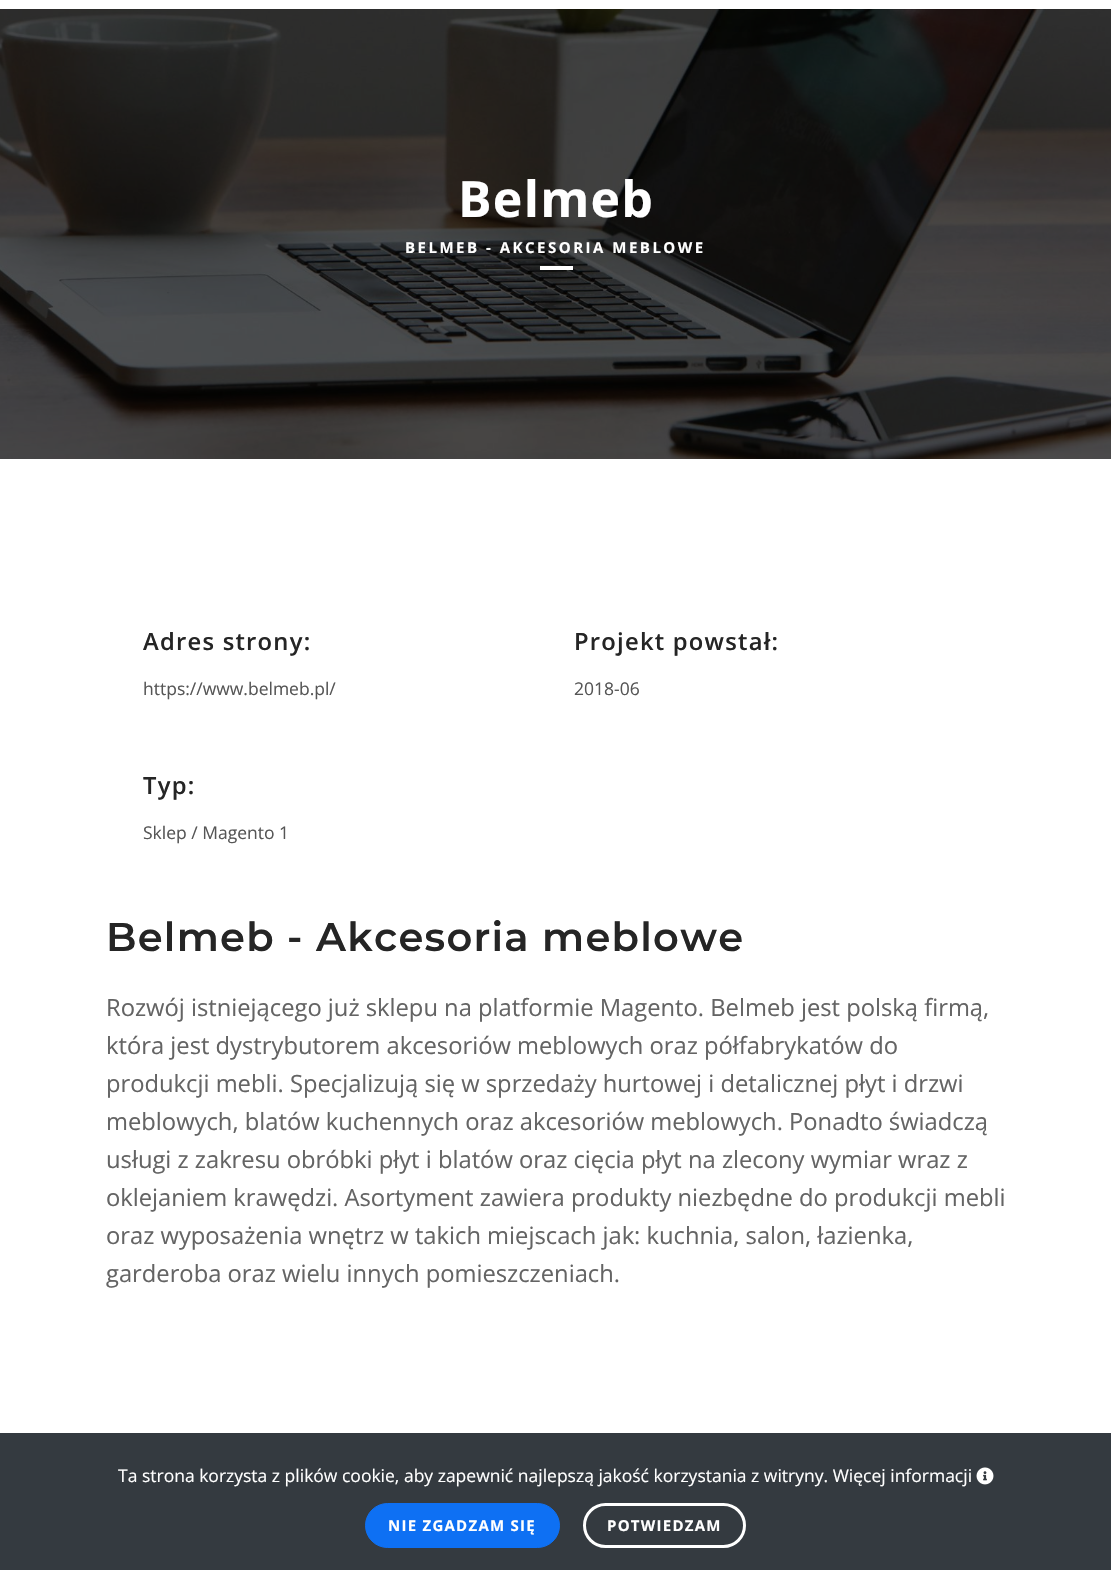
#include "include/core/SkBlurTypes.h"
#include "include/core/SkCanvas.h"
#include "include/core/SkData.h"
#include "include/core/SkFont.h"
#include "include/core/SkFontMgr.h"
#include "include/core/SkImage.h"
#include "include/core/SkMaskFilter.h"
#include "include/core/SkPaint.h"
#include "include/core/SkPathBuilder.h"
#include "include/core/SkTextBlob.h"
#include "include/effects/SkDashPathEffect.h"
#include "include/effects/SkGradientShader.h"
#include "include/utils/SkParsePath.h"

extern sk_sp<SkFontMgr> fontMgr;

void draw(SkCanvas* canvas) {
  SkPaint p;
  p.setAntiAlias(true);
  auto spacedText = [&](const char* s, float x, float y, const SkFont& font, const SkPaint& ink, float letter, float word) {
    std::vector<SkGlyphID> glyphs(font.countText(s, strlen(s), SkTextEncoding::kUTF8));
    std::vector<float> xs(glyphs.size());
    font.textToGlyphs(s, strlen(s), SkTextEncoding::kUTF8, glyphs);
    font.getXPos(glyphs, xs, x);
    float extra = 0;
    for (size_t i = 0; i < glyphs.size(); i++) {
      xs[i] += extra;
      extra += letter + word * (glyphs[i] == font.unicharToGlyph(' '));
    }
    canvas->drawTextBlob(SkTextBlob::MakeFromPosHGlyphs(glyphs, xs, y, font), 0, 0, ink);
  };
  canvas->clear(SK_ColorWHITE);
  canvas->drawImageRect(SkImages::DeferredFromEncodedData(SkData::MakeFromFileName("images/1.png")), SkRect::MakeLTRB(0, 9, 1111, 459), SkSamplingOptions());
  p.setColor(SK_ColorWHITE);
  canvas->drawRect(SkRect::MakeLTRB(540, 266, 573, 270), p);
  p.setColor(SkColorSetRGB(52, 58, 64));
  canvas->drawRect(SkRect::MakeLTRB(0, 1433, 1111, 1570), p);
  canvas->drawImageRect(SkImages::DeferredFromEncodedData(SkData::MakeFromFileName("images/2.png")), SkRect::MakeLTRB(976, 1467, 994, 1485), SkSamplingOptions());
  p.setColor(SkColorSetRGB(14, 112, 243));
  canvas->drawRoundRect(SkRect::MakeLTRB(365.5f, 1503.5f, 559.5f, 1547.5f), 22, 22, p);
  p.setStyle(SkPaint::kStroke_Style);
  p.setStrokeWidth(1);
  canvas->drawRoundRect(SkRect::MakeLTRB(365.5f, 1503.5f, 559.5f, 1547.5f), 22, 22, p);
  p.setStrokeWidth(3);
  p.setColor(SK_ColorWHITE);
  canvas->drawRoundRect(SkRect::MakeLTRB(584.5f, 1504.5f, 744.5f, 1546.5f), 21, 21, p);
  SkFont font1(fontMgr->matchFamilyStyle("Open Sans", SkFontStyle::Bold()), 50);
  font1.setSubpixel(true);
  p.setStyle(SkPaint::kFill_Style);
  spacedText("Belmeb", 458, 217, font1, p, 1.25f, 0);
  SkFont font2(fontMgr->matchFamilyStyle("Open Sans", SkFontStyle::Bold()), 15);
  font2.setSubpixel(true);
  spacedText("BELMEB - AKCESORIA MEBLOWE", 405, 253, font2, p, 2.5f, 0);
  SkFont font3(fontMgr->matchFamilyStyle("Open Sans", SkFontStyle(600, SkFontStyle::kNormal_Width, SkFontStyle::kUpright_Slant)), 23.75f);
  font3.setSubpixel(true);
  p.setColor(SkColorSetRGB(37, 37, 37));
  spacedText("Adres strony:", 143, 650, font3, p, 1.25f, 0);
  SkFont font4(fontMgr->matchFamilyStyle("Open Sans", SkFontStyle::Normal()), 17.5f);
  font4.setSubpixel(true);
  p.setColor(SkColorSetRGB(86, 86, 86));
  canvas->drawString("https://www.belmeb.pl/", 143, 695, font4, p);
  p.setColor(SkColorSetRGB(37, 37, 37));
  spacedText("Projekt powstał:", 574, 650, font3, p, 1.25f, 0);
  p.setColor(SkColorSetRGB(86, 86, 86));
  canvas->drawString("2018-06", 574, 695, font4, p);
  p.setColor(SkColorSetRGB(37, 37, 37));
  spacedText("Typ:", 143, 794, font3, p, 1.25f, 0);
  p.setColor(SkColorSetRGB(86, 86, 86));
  canvas->drawString("Sklep / Magento 1", 143, 839, font4, p);
  SkFont font5(fontMgr->matchFamilyStyle("Montserrat", SkFontStyle(600, SkFontStyle::kNormal_Width, SkFontStyle::kUpright_Slant)), 40);
  font5.setSubpixel(true);
  p.setColor(SkColorSetRGB(37, 37, 37));
  spacedText("Belmeb - Akcesoria meblowe", 106, 951, font5, p, 1.25f, 0);
  SkFont font6(fontMgr->matchFamilyStyle("Open Sans", SkFontStyle::Normal()), 23.75f);
  font6.setSubpixel(true);
  p.setColor(SkColorSetRGB(100, 100, 100));
  canvas->drawString("Rozwój istniejącego już sklepu na platformie Magento. Belmeb jest polską firmą,", 106, 1016, font6, p);
  canvas->drawString("która jest dystrybutorem akcesoriów meblowych oraz półfabrykatów do", 106, 1054, font6, p);
  canvas->drawString("produkcji mebli. Specjalizują się w sprzedaży hurtowej i detalicznej płyt i drzwi", 106, 1092, font6, p);
  canvas->drawString("meblowych, blatów kuchennych oraz akcesoriów meblowych. Ponadto świadczą", 106, 1130, font6, p);
  canvas->drawString("usługi z zakresu obróbki płyt i blatów oraz cięcia płyt na zlecony wymiar wraz z", 106, 1168, font6, p);
  canvas->drawString("oklejaniem krawędzi. Asortyment zawiera produkty niezbędne do produkcji mebli", 106, 1206, font6, p);
  canvas->drawString("oraz wyposażenia wnętrz w takich miejscach jak: kuchnia, salon, łazienka,", 106, 1244, font6, p);
  canvas->drawString("garderoba oraz wielu innych pomieszczeniach.", 106, 1282, font6, p);
  p.setColor(SK_ColorWHITE);
  canvas->drawString("Ta strona korzysta z plików cookie, aby zapewnić najlepszą jakość korzystania z witryny. Więcej informacji", 118, 1482, font4, p);
  spacedText("NIE ZGADZAM SIĘ", 388, 1531, font2, p, 1.25f, 0);
  spacedText("POTWIEDZAM", 607, 1531, font2, p, 1.25f, 0);
}
